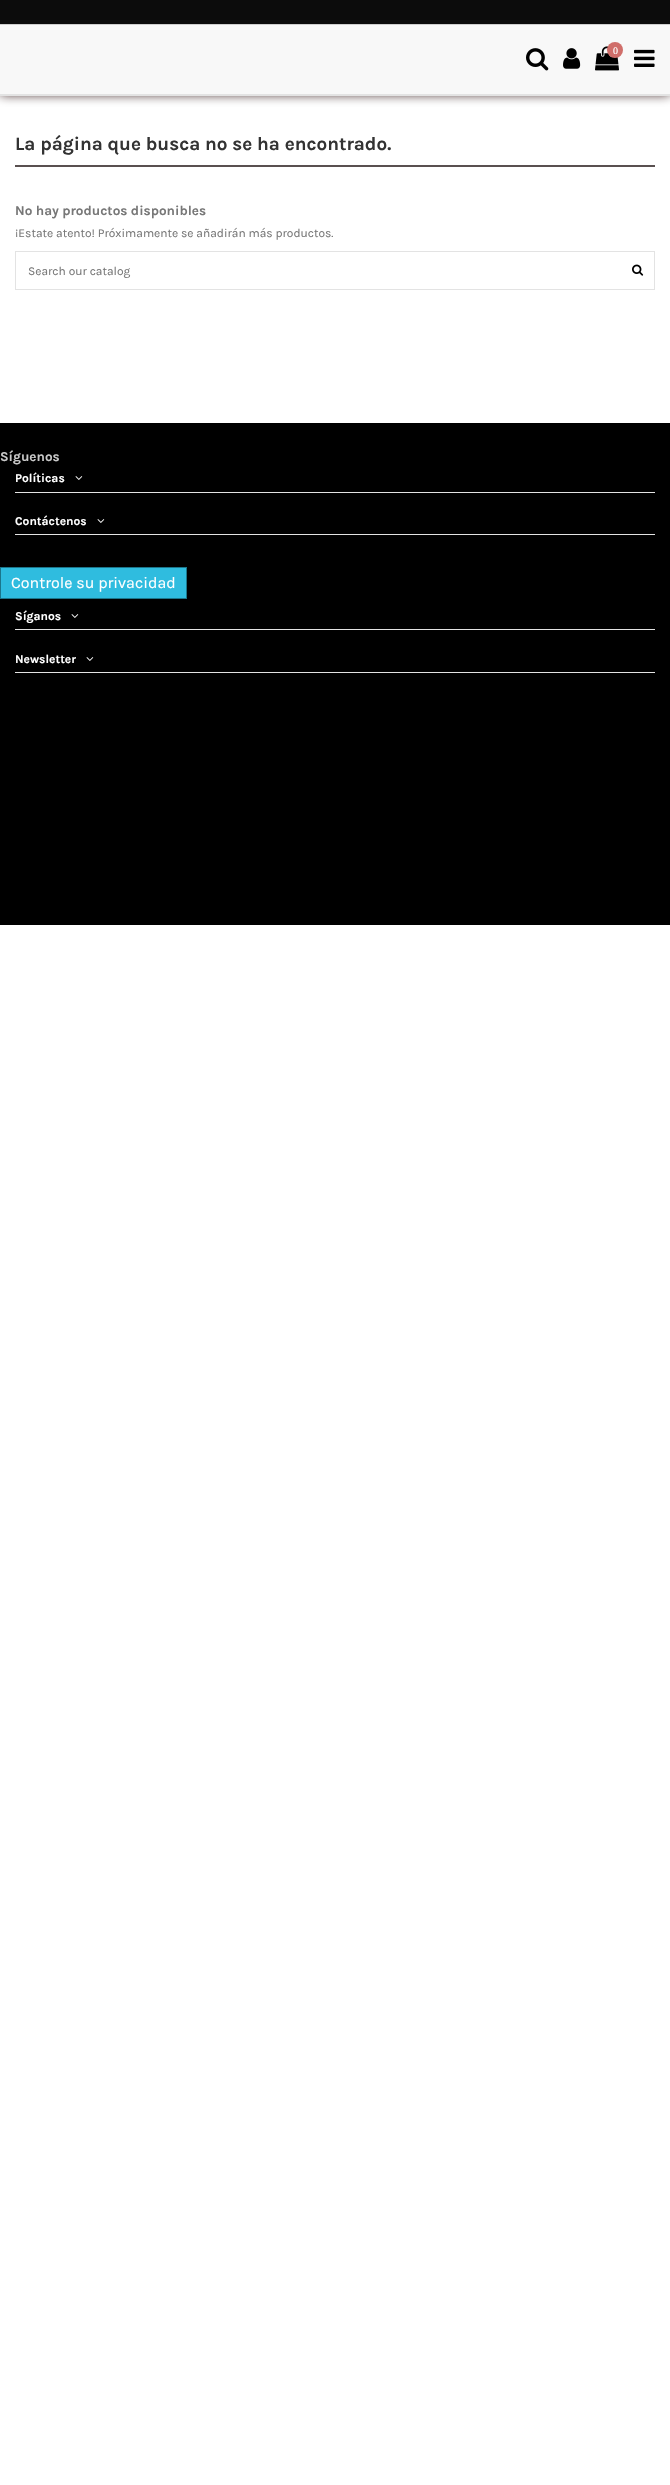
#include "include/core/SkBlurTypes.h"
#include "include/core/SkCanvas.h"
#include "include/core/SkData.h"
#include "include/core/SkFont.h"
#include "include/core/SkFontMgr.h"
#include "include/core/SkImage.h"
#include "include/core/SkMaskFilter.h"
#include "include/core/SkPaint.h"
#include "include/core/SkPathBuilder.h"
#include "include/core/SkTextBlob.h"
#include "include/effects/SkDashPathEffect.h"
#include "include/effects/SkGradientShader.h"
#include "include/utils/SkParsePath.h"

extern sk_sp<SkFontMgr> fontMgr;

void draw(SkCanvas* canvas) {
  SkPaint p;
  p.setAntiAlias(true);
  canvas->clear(SK_ColorWHITE);
  p.setColor(SkColorSetARGB(245, 31, 3, 3));
  p.setMaskFilter(SkMaskFilter::MakeBlur(kNormal_SkBlurStyle, 5.5f));
  canvas->drawRect(SkRect::MakeLTRB(0, -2, 670, 94), p);
  p.setMaskFilter(nullptr);
  p.setColor(SkColorSetRGB(248, 248, 248));
  canvas->drawRect(SkRect::MakeLTRB(0, 25, 670, 94), p);
  p.setColor(SkColorSetRGB(227, 227, 227));
  canvas->drawRect(SkRect::MakeLTRB(0, 94, 670, 96), p);
  p.setColor(SkColorSetRGB(12, 12, 12));
  canvas->drawRect(SkRect::MakeLTRB(0, 0, 670, 24), p);
  p.setColor(SkColorSetRGB(207, 207, 207));
  canvas->drawRect(SkRect::MakeLTRB(0, 24, 670, 25), p);
  canvas->drawImageRect(SkImages::DeferredFromEncodedData(SkData::MakeFromFileName("images/1.png")), SkRect::MakeLTRB(526, 48, 549, 71), SkSamplingOptions());
  canvas->drawImageRect(SkImages::DeferredFromEncodedData(SkData::MakeFromFileName("images/2.png")), SkRect::MakeLTRB(563, 48, 581, 69), SkSamplingOptions());
  canvas->drawImageRect(SkImages::DeferredFromEncodedData(SkData::MakeFromFileName("images/3.png")), SkRect::MakeLTRB(595, 46, 619, 71), SkSamplingOptions());
  p.setColor(SkColorSetRGB(208, 110, 106));
  canvas->drawCircle(615, 50, 8, p);
  canvas->drawImageRect(SkImages::DeferredFromEncodedData(SkData::MakeFromFileName("images/4.png")), SkRect::MakeLTRB(634, 49, 655, 67), SkSamplingOptions());
  p.setColor(SkColorSetRGB(89, 80, 80));
  canvas->drawRect(SkRect::MakeLTRB(15, 165, 655, 167), p);
  p.setStyle(SkPaint::kStroke_Style);
  p.setStrokeWidth(1);
  p.setColor(SkColorSetRGB(227, 227, 227));
  canvas->drawRect(SkRect::MakeLTRB(15.5f, 251.5f, 654.5f, 289.5f), p);
  canvas->drawImageRect(SkImages::DeferredFromEncodedData(SkData::MakeFromFileName("images/5.png")), SkRect::MakeLTRB(632, 264, 644, 276), SkSamplingOptions());
  p.setStyle(SkPaint::kFill_Style);
  p.setColor(SK_ColorBLACK);
  canvas->drawRect(SkRect::MakeLTRB(0, 423, 670, 925), p);
  p.setColor(SkColorSetRGB(227, 227, 227));
  canvas->drawRect(SkRect::MakeLTRB(15, 492, 655, 493), p);
  canvas->drawImageRect(SkImages::DeferredFromEncodedData(SkData::MakeFromFileName("images/6.png")), SkRect::MakeLTRB(75, 476, 83, 480), SkSamplingOptions());
  canvas->drawRect(SkRect::MakeLTRB(15, 534, 655, 535), p);
  canvas->drawImageRect(SkImages::DeferredFromEncodedData(SkData::MakeFromFileName("images/6.png")), SkRect::MakeLTRB(97, 519, 105, 523), SkSamplingOptions());
  p.setColor(SkColorSetRGB(47, 188, 223));
  canvas->drawRect(SkRect::MakeLTRB(0.5f, 567.5f, 186.5f, 598.5f), p);
  p.setStyle(SkPaint::kStroke_Style);
  p.setColor(SkColorSetRGB(27, 118, 139));
  canvas->drawRect(SkRect::MakeLTRB(0.5f, 567.5f, 186.5f, 598.5f), p);
  p.setStyle(SkPaint::kFill_Style);
  p.setColor(SkColorSetRGB(227, 227, 227));
  canvas->drawRect(SkRect::MakeLTRB(15, 629, 655, 630), p);
  canvas->drawImageRect(SkImages::DeferredFromEncodedData(SkData::MakeFromFileName("images/6.png")), SkRect::MakeLTRB(71, 614, 79, 618), SkSamplingOptions());
  canvas->drawRect(SkRect::MakeLTRB(15, 672, 655, 673), p);
  canvas->drawImageRect(SkImages::DeferredFromEncodedData(SkData::MakeFromFileName("images/6.png")), SkRect::MakeLTRB(86, 657, 94, 661), SkSamplingOptions());
  SkFont font1(fontMgr->matchFamilyStyle("Liberation Serif", SkFontStyle::Normal()), 10);
  font1.setSubpixel(true);
  p.setColor(SK_ColorWHITE);
  canvas->drawString("0", 613, 54, font1, p);
  SkFont font2(fontMgr->matchFamilyStyle("Karla", SkFontStyle::Bold()), 18.9f);
  font2.setSubpixel(true);
  p.setColor(SkColorSetRGB(51, 51, 51));
  canvas->drawString("La página que busca no se ha encontrado.", 15, 150, font2, p);
  SkFont font3(fontMgr->matchFamilyStyle("Karla", SkFontStyle::Bold()), 13.5f);
  font3.setSubpixel(true);
  p.setColor(SkColorSetRGB(119, 119, 119));
  canvas->drawString("No hay productos disponibles", 15, 215, font3, p);
  SkFont font4(fontMgr->matchFamilyStyle("Karla", SkFontStyle::Normal()), 12);
  font4.setSubpixel(true);
  canvas->drawString("¡Estate atento! Próximamente se añadirán más productos.", 15, 237, font4, p);
  canvas->drawString("Search our catalog", 28, 275, font4, p);
  p.setColor(SkColorSetRGB(201, 201, 201));
  canvas->drawString("Síguenos", 0, 461, font3, p);
  SkFont font5(fontMgr->matchFamilyStyle("Karla", SkFontStyle::Bold()), 12);
  font5.setSubpixel(true);
  p.setColor(SK_ColorWHITE);
  canvas->drawString("Políticas", 15, 482, font5, p);
  canvas->drawString("Contáctenos", 15, 525, font5, p);
  SkFont font6(fontMgr->matchFamilyStyle("Karla", SkFontStyle::Normal()), 16);
  font6.setSubpixel(true);
  canvas->drawString("Controle su privacidad", 11, 588, font6, p);
  canvas->drawString("Síganos", 15, 620, font5, p);
  canvas->drawString("Newsletter", 15, 663, font5, p);
}
